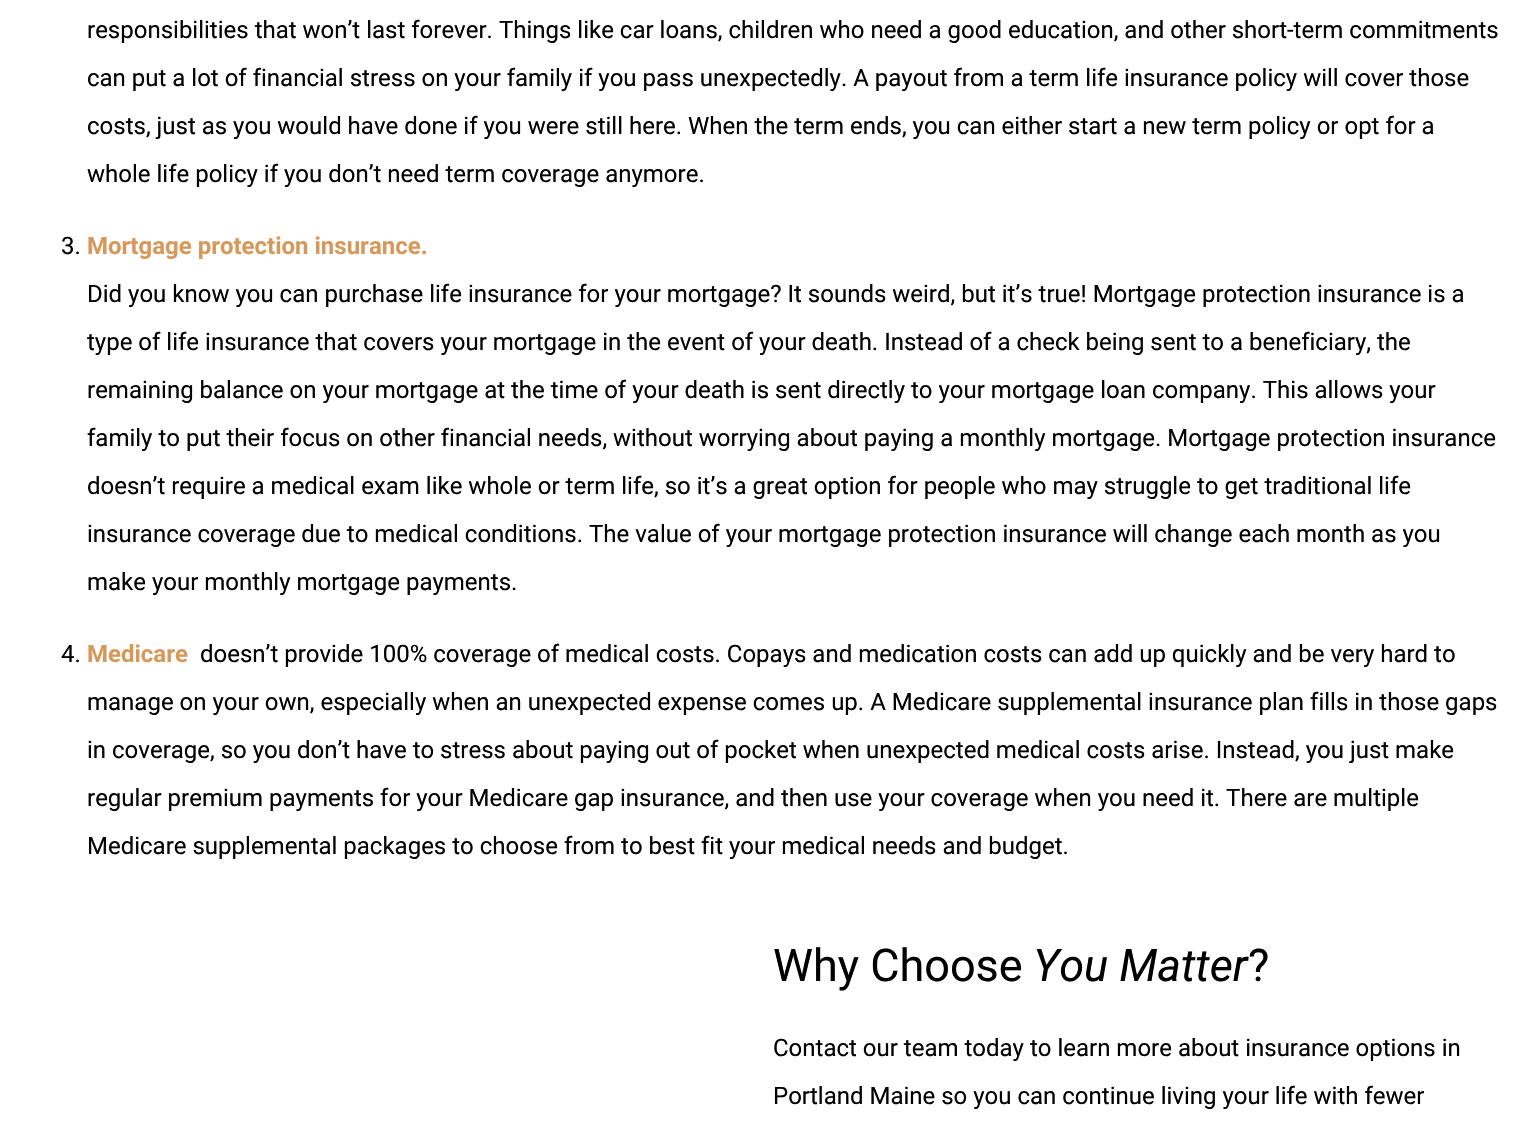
#include "include/core/SkBlurTypes.h"
#include "include/core/SkCanvas.h"
#include "include/core/SkData.h"
#include "include/core/SkFont.h"
#include "include/core/SkFontMgr.h"
#include "include/core/SkImage.h"
#include "include/core/SkMaskFilter.h"
#include "include/core/SkPaint.h"
#include "include/core/SkPathBuilder.h"
#include "include/core/SkTextBlob.h"
#include "include/effects/SkDashPathEffect.h"
#include "include/effects/SkGradientShader.h"
#include "include/utils/SkParsePath.h"

extern sk_sp<SkFontMgr> fontMgr;

void draw(SkCanvas* canvas) {
  SkPaint p;
  p.setAntiAlias(true);
  canvas->clear(SK_ColorWHITE);
  SkFont font1(fontMgr->matchFamilyStyle("Roboto", SkFontStyle::Normal()), 24);
  font1.setSubpixel(true);
  p.setColor(SK_ColorBLACK);
  canvas->drawString("responsibilities that won’t last forever. Things like car loans, children who need a good education, and other short-term commitments", 87, 38, font1, p);
  canvas->drawString("can put a lot of financial stress on your family if you pass unexpectedly. A payout from a term life insurance policy will cover those", 87, 86, font1, p);
  canvas->drawString("costs, just as you would have done if you were still here. When the term ends, you can either start a new term policy or opt for a", 87, 134, font1, p);
  canvas->drawString("whole life policy if you don’t need term coverage anymore.", 87, 182, font1, p);
  canvas->drawString("3.", 61, 254, font1, p);
  SkFont font2(fontMgr->matchFamilyStyle("Roboto", SkFontStyle::Bold()), 24);
  font2.setSubpixel(true);
  p.setColor(SkColorSetRGB(215, 153, 91));
  canvas->drawString("Mortgage protection insurance.", 87, 254, font2, p);
  p.setColor(SK_ColorBLACK);
  canvas->drawString("Did you know you can purchase life insurance for your mortgage? It sounds weird, but it’s true! Mortgage protection insurance is a", 87, 302, font1, p);
  canvas->drawString("type of life insurance that covers your mortgage in the event of your death. Instead of a check being sent to a beneficiary, the", 87, 350, font1, p);
  canvas->drawString("remaining balance on your mortgage at the time of your death is sent directly to your mortgage loan company. This allows your", 87, 398, font1, p);
  canvas->drawString("family to put their focus on other financial needs, without worrying about paying a monthly mortgage. Mortgage protection insurance", 87, 446, font1, p);
  canvas->drawString("doesn’t require a medical exam like whole or term life, so it’s a great option for people who may struggle to get traditional life", 87, 494, font1, p);
  canvas->drawString("insurance coverage due to medical conditions. The value of your mortgage protection insurance will change each month as you", 87, 542, font1, p);
  canvas->drawString("make your monthly mortgage payments.", 87, 590, font1, p);
  canvas->drawString("4.", 61, 662, font1, p);
  p.setColor(SkColorSetRGB(215, 153, 91));
  canvas->drawString("Medicare", 87, 662, font2, p);
  p.setColor(SK_ColorBLACK);
  canvas->drawString("doesn’t provide 100% coverage of medical costs. Copays and medication costs can add up quickly and be very hard to", 200, 662, font1, p);
  canvas->drawString("manage on your own, especially when an unexpected expense comes up. A Medicare supplemental insurance plan fills in those gaps", 87, 710, font1, p);
  canvas->drawString("in coverage, so you don’t have to stress about paying out of pocket when unexpected medical costs arise. Instead, you just make", 87, 758, font1, p);
  canvas->drawString("regular premium payments for your Medicare gap insurance, and then use your coverage when you need it. There are multiple", 87, 806, font1, p);
  canvas->drawString("Medicare supplemental packages to choose from to best fit your medical needs and budget.", 87, 854, font1, p);
  SkFont font3(fontMgr->matchFamilyStyle("Roboto", SkFontStyle::Normal()), 45);
  font3.setSubpixel(true);
  canvas->drawString("Why Choose", 773, 981, font3, p);
  SkFont font4(fontMgr->matchFamilyStyle("Roboto", SkFontStyle::Italic()), 45);
  font4.setSubpixel(true);
  canvas->drawString("You Matter", 1033, 981, font4, p);
  canvas->drawString("?", 1248, 981, font3, p);
  canvas->drawString("Contact our team today to learn more about insurance options in", 773, 1056, font1, p);
  canvas->drawString("Portland Maine so you can continue living your life with fewer", 773, 1104, font1, p);
}
